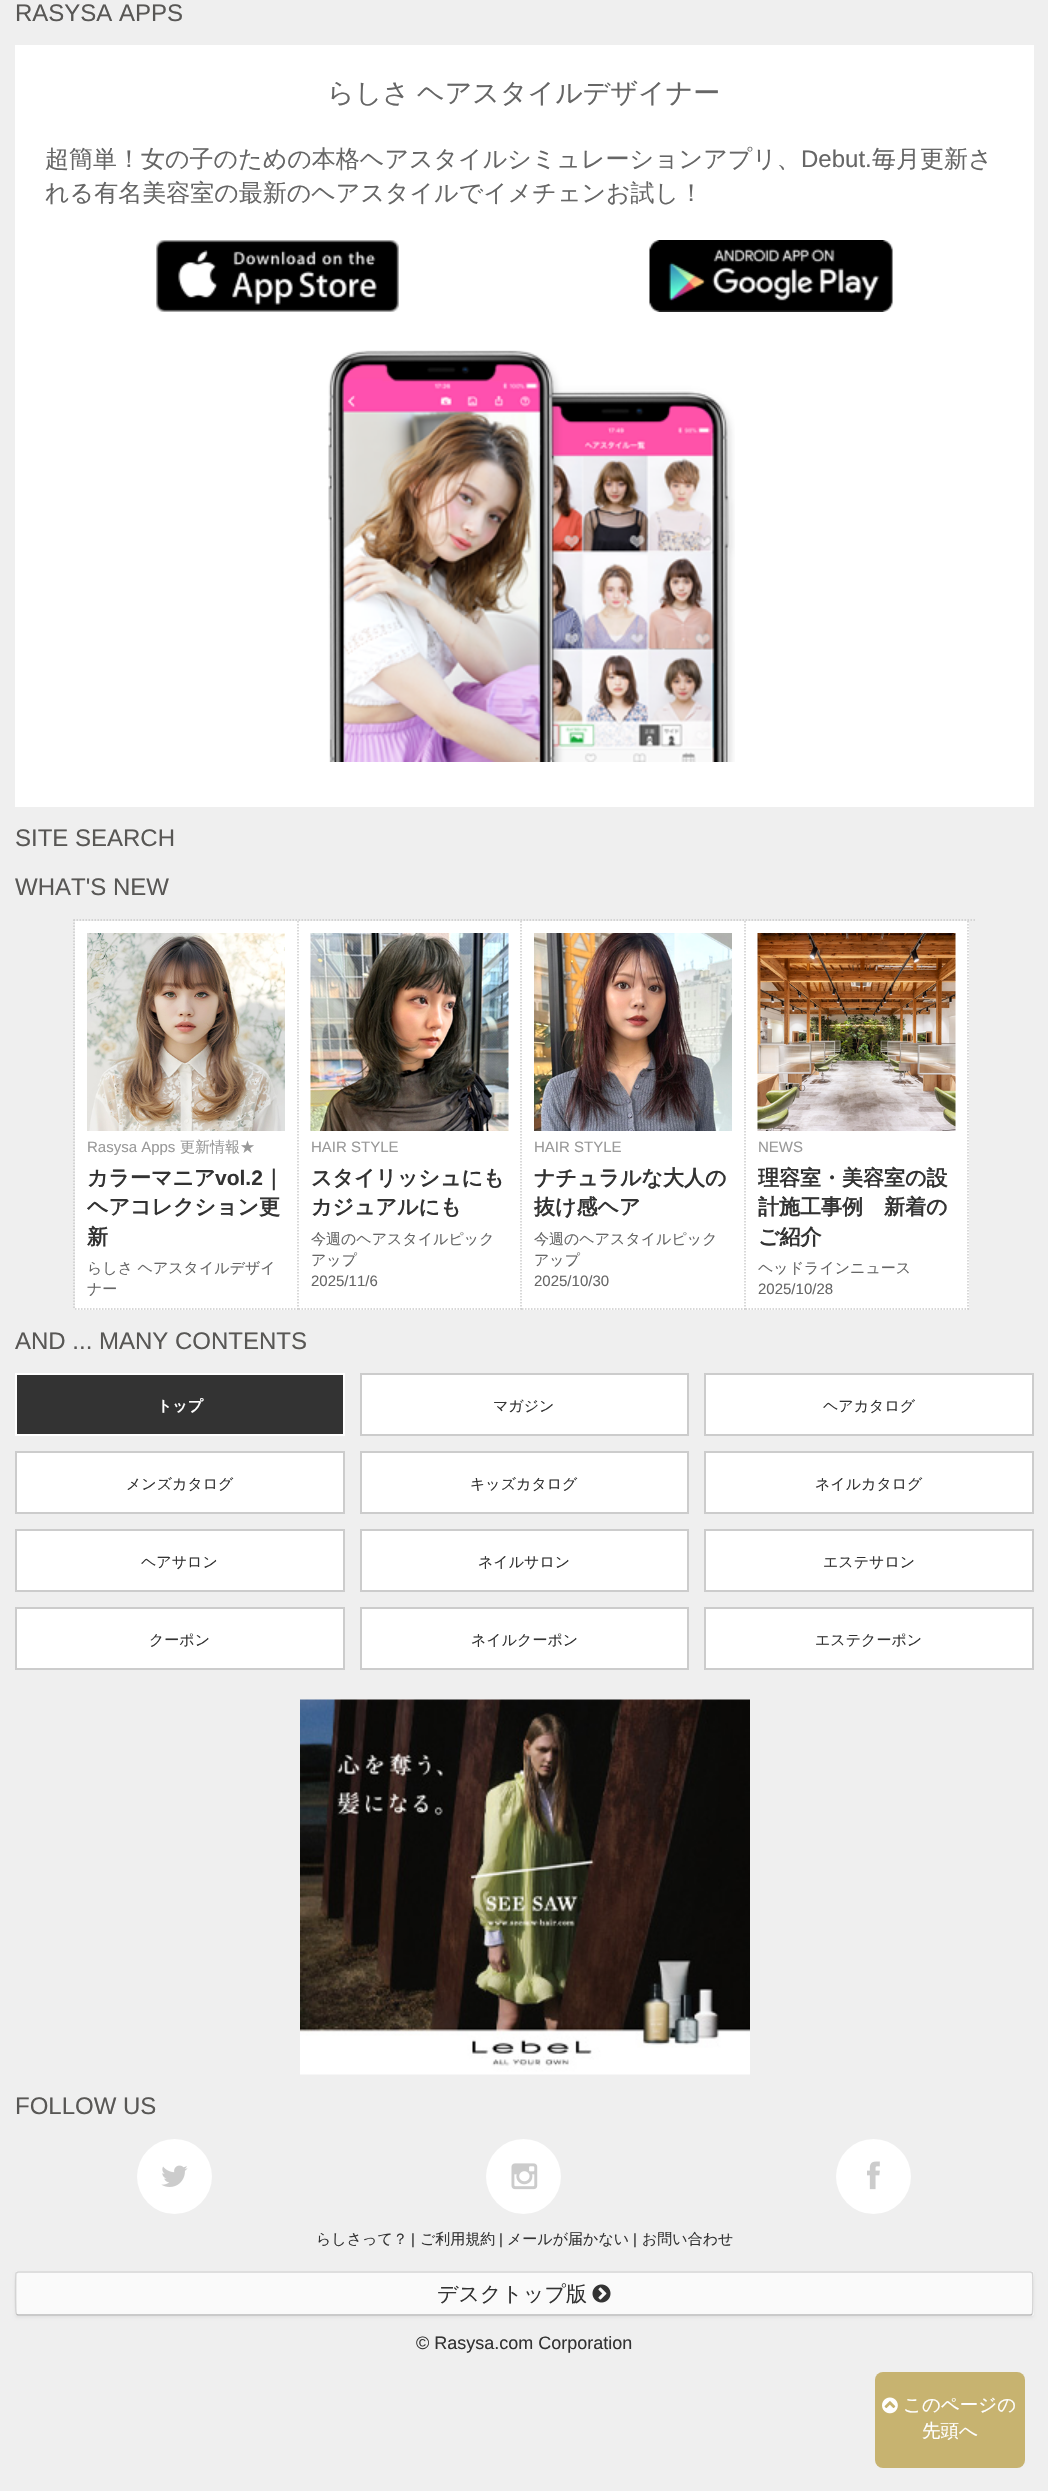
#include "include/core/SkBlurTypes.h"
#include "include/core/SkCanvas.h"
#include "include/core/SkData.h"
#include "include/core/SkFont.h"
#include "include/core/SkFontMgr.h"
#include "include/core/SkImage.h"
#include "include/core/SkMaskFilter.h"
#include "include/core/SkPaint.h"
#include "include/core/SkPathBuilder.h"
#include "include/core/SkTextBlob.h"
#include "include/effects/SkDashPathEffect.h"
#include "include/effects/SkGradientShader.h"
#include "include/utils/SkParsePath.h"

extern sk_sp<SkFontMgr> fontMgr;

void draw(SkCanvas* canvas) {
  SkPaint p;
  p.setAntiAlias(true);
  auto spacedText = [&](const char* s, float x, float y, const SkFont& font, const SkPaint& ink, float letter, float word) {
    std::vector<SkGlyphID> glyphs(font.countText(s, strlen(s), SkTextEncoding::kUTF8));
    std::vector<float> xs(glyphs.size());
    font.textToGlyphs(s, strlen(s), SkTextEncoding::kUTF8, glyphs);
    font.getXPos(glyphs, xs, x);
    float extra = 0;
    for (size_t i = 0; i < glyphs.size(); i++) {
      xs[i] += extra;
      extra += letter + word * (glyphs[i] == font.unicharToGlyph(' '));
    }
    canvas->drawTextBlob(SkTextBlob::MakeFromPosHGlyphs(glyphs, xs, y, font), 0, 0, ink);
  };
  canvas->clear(SkColorSetRGB(239, 239, 239));
  p.setColor(SK_ColorWHITE);
  canvas->drawRect(SkRect::MakeLTRB(15, 45, 1034, 807), p);
  canvas->drawImageRect(SkImages::DeferredFromEncodedData(SkData::MakeFromFileName("images/1.png")), SkRect::MakeLTRB(156, 240, 399, 312), SkSamplingOptions());
  canvas->drawImageRect(SkImages::DeferredFromEncodedData(SkData::MakeFromFileName("images/2.png")), SkRect::MakeLTRB(649, 240, 893, 312), SkSamplingOptions());
  canvas->drawImageRect(SkImages::DeferredFromEncodedData(SkData::MakeFromFileName("images/3.png")), SkRect::MakeLTRB(328, 350, 735, 762), SkSamplingOptions());
  p.setStyle(SkPaint::kStroke_Style);
  p.setStrokeWidth(1.5f);
  p.setColor(SkColorSetRGB(204, 204, 204));
  p.setPathEffect(SkDashPathEffect::Make({{1.5f, 1.5f}}, 0));
  canvas->drawPath(SkPathBuilder().moveTo(73.5f, 920).lineTo(975, 920).detach(), p);
  p.setPathEffect(nullptr);
  p.setPathEffect(SkDashPathEffect::Make({{1.5f, 1.5f}}, 0));
  canvas->drawPath(SkPathBuilder().moveTo(74, 919.5f).lineTo(74, 1309.5f).detach(), p);
  p.setPathEffect(nullptr);
  p.setStyle(SkPaint::kFill_Style);
  p.setColor(SK_ColorWHITE);
  canvas->drawRect(SkRect::MakeLTRB(75, 921, 969, 1310), p);
  p.setStyle(SkPaint::kStroke_Style);
  p.setColor(SkColorSetRGB(204, 204, 204));
  p.setPathEffect(SkDashPathEffect::Make({{1.5f, 1.5f}}, 0));
  canvas->drawPath(SkPathBuilder().moveTo(298, 921).lineTo(298, 1309.5f).detach(), p);
  p.setPathEffect(nullptr);
  p.setPathEffect(SkDashPathEffect::Make({{1.5f, 1.5f}}, 0));
  canvas->drawPath(SkPathBuilder().moveTo(75, 1309).lineTo(298.5f, 1309).detach(), p);
  p.setPathEffect(nullptr);
  canvas->drawImageRect(SkImages::DeferredFromEncodedData(SkData::MakeFromFileName("images/4.png")), SkRect::MakeLTRB(87, 933, 285, 1131), SkSamplingOptions());
  p.setPathEffect(SkDashPathEffect::Make({{1.5f, 1.5f}}, 0));
  canvas->drawPath(SkPathBuilder().moveTo(521, 921).lineTo(521, 1309.5f).detach(), p);
  p.setPathEffect(nullptr);
  p.setPathEffect(SkDashPathEffect::Make({{1.5f, 1.5f}}, 0));
  canvas->drawPath(SkPathBuilder().moveTo(298.5f, 1309).lineTo(522, 1309).detach(), p);
  p.setPathEffect(nullptr);
  canvas->drawImageRect(SkImages::DeferredFromEncodedData(SkData::MakeFromFileName("images/5.png")), SkRect::MakeLTRB(310, 933, 509, 1131), SkSamplingOptions());
  p.setPathEffect(SkDashPathEffect::Make({{1.5f, 1.5f}}, 0));
  canvas->drawPath(SkPathBuilder().moveTo(745, 921).lineTo(745, 1309.5f).detach(), p);
  p.setPathEffect(nullptr);
  p.setPathEffect(SkDashPathEffect::Make({{1.5f, 1.5f}}, 0));
  canvas->drawPath(SkPathBuilder().moveTo(522, 1309).lineTo(745.5f, 1309).detach(), p);
  p.setPathEffect(nullptr);
  canvas->drawImageRect(SkImages::DeferredFromEncodedData(SkData::MakeFromFileName("images/6.png")), SkRect::MakeLTRB(534, 933, 732, 1131), SkSamplingOptions());
  p.setPathEffect(SkDashPathEffect::Make({{1.5f, 1.5f}}, 0));
  canvas->drawPath(SkPathBuilder().moveTo(968, 921).lineTo(968, 1309.5f).detach(), p);
  p.setPathEffect(nullptr);
  p.setPathEffect(SkDashPathEffect::Make({{1.5f, 1.5f}}, 0));
  canvas->drawPath(SkPathBuilder().moveTo(745.5f, 1309).lineTo(969, 1309).detach(), p);
  p.setPathEffect(nullptr);
  canvas->drawImageRect(SkImages::DeferredFromEncodedData(SkData::MakeFromFileName("images/7.png")), SkRect::MakeLTRB(757, 933, 956, 1131), SkSamplingOptions());
  p.setStyle(SkPaint::kFill_Style);
  p.setColor(SkColorSetRGB(51, 51, 51));
  canvas->drawRect(SkRect::MakeLTRB(16, 1374, 344, 1435), p);
  p.setStyle(SkPaint::kStroke_Style);
  p.setStrokeWidth(2);
  p.setColor(SK_ColorWHITE);
  canvas->drawRect(SkRect::MakeLTRB(16, 1374, 344, 1435), p);
  p.setStyle(SkPaint::kFill_Style);
  canvas->drawRect(SkRect::MakeLTRB(361, 1374, 688, 1435), p);
  p.setStyle(SkPaint::kStroke_Style);
  p.setColor(SkColorSetRGB(204, 204, 204));
  canvas->drawRect(SkRect::MakeLTRB(361, 1374, 688, 1435), p);
  p.setStyle(SkPaint::kFill_Style);
  p.setColor(SK_ColorWHITE);
  canvas->drawRect(SkRect::MakeLTRB(705, 1374, 1033, 1435), p);
  p.setStyle(SkPaint::kStroke_Style);
  p.setColor(SkColorSetRGB(204, 204, 204));
  canvas->drawRect(SkRect::MakeLTRB(705, 1374, 1033, 1435), p);
  p.setStyle(SkPaint::kFill_Style);
  p.setColor(SK_ColorWHITE);
  canvas->drawRect(SkRect::MakeLTRB(16, 1452, 344, 1513), p);
  p.setStyle(SkPaint::kStroke_Style);
  p.setColor(SkColorSetRGB(204, 204, 204));
  canvas->drawRect(SkRect::MakeLTRB(16, 1452, 344, 1513), p);
  p.setStyle(SkPaint::kFill_Style);
  p.setColor(SK_ColorWHITE);
  canvas->drawRect(SkRect::MakeLTRB(361, 1452, 688, 1513), p);
  p.setStyle(SkPaint::kStroke_Style);
  p.setColor(SkColorSetRGB(204, 204, 204));
  canvas->drawRect(SkRect::MakeLTRB(361, 1452, 688, 1513), p);
  p.setStyle(SkPaint::kFill_Style);
  p.setColor(SK_ColorWHITE);
  canvas->drawRect(SkRect::MakeLTRB(705, 1452, 1033, 1513), p);
  p.setStyle(SkPaint::kStroke_Style);
  p.setColor(SkColorSetRGB(204, 204, 204));
  canvas->drawRect(SkRect::MakeLTRB(705, 1452, 1033, 1513), p);
  p.setStyle(SkPaint::kFill_Style);
  p.setColor(SK_ColorWHITE);
  canvas->drawRect(SkRect::MakeLTRB(16, 1530, 344, 1591), p);
  p.setStyle(SkPaint::kStroke_Style);
  p.setColor(SkColorSetRGB(204, 204, 204));
  canvas->drawRect(SkRect::MakeLTRB(16, 1530, 344, 1591), p);
  p.setStyle(SkPaint::kFill_Style);
  p.setColor(SK_ColorWHITE);
  canvas->drawRect(SkRect::MakeLTRB(361, 1530, 688, 1591), p);
  p.setStyle(SkPaint::kStroke_Style);
  p.setColor(SkColorSetRGB(204, 204, 204));
  canvas->drawRect(SkRect::MakeLTRB(361, 1530, 688, 1591), p);
  p.setStyle(SkPaint::kFill_Style);
  p.setColor(SK_ColorWHITE);
  canvas->drawRect(SkRect::MakeLTRB(705, 1530, 1033, 1591), p);
  p.setStyle(SkPaint::kStroke_Style);
  p.setColor(SkColorSetRGB(204, 204, 204));
  canvas->drawRect(SkRect::MakeLTRB(705, 1530, 1033, 1591), p);
  p.setStyle(SkPaint::kFill_Style);
  p.setColor(SK_ColorWHITE);
  canvas->drawRect(SkRect::MakeLTRB(16, 1608, 344, 1669), p);
  p.setStyle(SkPaint::kStroke_Style);
  p.setColor(SkColorSetRGB(204, 204, 204));
  canvas->drawRect(SkRect::MakeLTRB(16, 1608, 344, 1669), p);
  p.setStyle(SkPaint::kFill_Style);
  p.setColor(SK_ColorWHITE);
  canvas->drawRect(SkRect::MakeLTRB(361, 1608, 688, 1669), p);
  p.setStyle(SkPaint::kStroke_Style);
  p.setColor(SkColorSetRGB(204, 204, 204));
  canvas->drawRect(SkRect::MakeLTRB(361, 1608, 688, 1669), p);
  p.setStyle(SkPaint::kFill_Style);
  p.setColor(SK_ColorWHITE);
  canvas->drawRect(SkRect::MakeLTRB(705, 1608, 1033, 1669), p);
  p.setStyle(SkPaint::kStroke_Style);
  p.setColor(SkColorSetRGB(204, 204, 204));
  canvas->drawRect(SkRect::MakeLTRB(705, 1608, 1033, 1669), p);
  canvas->drawImageRect(SkImages::DeferredFromEncodedData(SkData::MakeFromFileName("images/8.png")), SkRect::MakeLTRB(300, 1699, 750, 2075), SkSamplingOptions());
  p.setStyle(SkPaint::kFill_Style);
  p.setColor(SK_ColorWHITE);
  canvas->drawCircle(174.5f, 2176.5f, 37.5f, p);
  canvas->drawImageRect(SkImages::DeferredFromEncodedData(SkData::MakeFromFileName("images/9.png")), SkRect::MakeLTRB(161, 2165, 188, 2187), SkSamplingOptions());
  canvas->drawCircle(523.5f, 2176.5f, 37.5f, p);
  canvas->drawImageRect(SkImages::DeferredFromEncodedData(SkData::MakeFromFileName("images/10.png")), SkRect::MakeLTRB(511, 2163, 538, 2190), SkSamplingOptions());
  canvas->drawCircle(873.5f, 2176.5f, 37.5f, p);
  canvas->drawImageRect(SkImages::DeferredFromEncodedData(SkData::MakeFromFileName("images/11.png")), SkRect::MakeLTRB(867, 2161, 880, 2190), SkSamplingOptions());
  p.setColor(SkColorSetARGB(13, 0, 0, 0));
  p.setMaskFilter(SkMaskFilter::MakeBlur(kNormal_SkBlurStyle, 1.5f));
  canvas->drawRoundRect(SkRect::MakeLTRB(15, 2273, 1034, 2318), 3, 3, p);
  p.setMaskFilter(nullptr);
  p.setColor(SkColorSetRGB(250, 250, 250));
  canvas->drawRoundRect(SkRect::MakeLTRB(15, 2271, 1034, 2316), 3, 3, p);
  p.setStyle(SkPaint::kStroke_Style);
  p.setStrokeWidth(1.5f);
  p.setColor(SkColorSetRGB(187, 187, 187));
  canvas->drawPath(SkPathBuilder().moveTo(1032, 2314.5f).lineTo(1030.5f, 2315).lineTo(18, 2315).lineTo(16.5f, 2314.5f).detach(), p);
  p.setColor(SkColorSetARGB(38, 0, 0, 0));
  canvas->drawPath(SkPathBuilder().moveTo(16.5f, 2314.5f).lineTo(16, 2313).cubicTo(15.5f, 2309.5f, 15.5f, 2274, 16, 2273).lineTo(18, 2272).lineTo(1030.5f, 2272).lineTo(1032.5f, 2273).cubicTo(1033, 2274, 1033, 2309.5f, 1032.5f, 2313).lineTo(1032, 2314.5f).detach(), p);
  canvas->drawImageRect(SkImages::DeferredFromEncodedData(SkData::MakeFromFileName("images/12.png")), SkRect::MakeLTRB(592, 2284, 611, 2303), SkSamplingOptions());
  p.setStyle(SkPaint::kFill_Style);
  p.setColor(SkColorSetRGB(199, 179, 112));
  canvas->drawRoundRect(SkRect::MakeLTRB(875, 2372, 1025, 2468), 8, 8, p);
  canvas->drawImageRect(SkImages::DeferredFromEncodedData(SkData::MakeFromFileName("images/13.png")), SkRect::MakeLTRB(882, 2397, 898, 2414), SkSamplingOptions());
  SkFont font1(fontMgr->matchFamilyStyle("Liberation Sans", SkFontStyle::Normal()), 24);
  font1.setSubpixel(true);
  p.setColor(SkColorSetRGB(88, 87, 85));
  canvas->drawString("RASYSA APPS", 15, 21, font1, p);
  SkFont font2(fontMgr->matchFamilyStyle("WenQuanYi Zen Hei", SkFontStyle(500, SkFontStyle::kNormal_Width, SkFontStyle::kUpright_Slant)), 27);
  font2.setSubpixel(true);
  p.setColor(SkColorSetRGB(102, 102, 102));
  spacedText("らしさ ヘアスタイルデザイナー", 327, 102, font2, p, 0, -1);
  SkFont font3(fontMgr->matchFamilyStyle("WenQuanYi Zen Hei", SkFontStyle(500, SkFontStyle::kNormal_Width, SkFontStyle::kUpright_Slant)), 24);
  font3.setSubpixel(true);
  canvas->drawString("超簡単！女の子のための本格ヘアスタイルシミュレーションアプリ、", 45, 167, font3, p);
  canvas->drawString("Debut.", 801, 167, font1, p);
  canvas->drawString("毎月更新さ", 872, 167, font3, p);
  canvas->drawString("れる有名美容室の最新のヘアスタイルでイメチェンお試し！", 45, 201, font3, p);
  p.setColor(SkColorSetRGB(88, 87, 85));
  canvas->drawString("SITE SEARCH", 15, 846, font1, p);
  canvas->drawString("WHAT'S NEW", 15, 895, font1, p);
  SkFont font4(fontMgr->matchFamilyStyle("Liberation Sans", SkFontStyle::Normal()), 15);
  font4.setSubpixel(true);
  p.setColor(SkColorSetRGB(153, 153, 153));
  canvas->drawString("Rasysa Apps", 87, 1152, font4, p);
  SkFont font5(fontMgr->matchFamilyStyle("WenQuanYi Zen Hei", SkFontStyle(500, SkFontStyle::kNormal_Width, SkFontStyle::kUpright_Slant)), 15);
  font5.setSubpixel(true);
  canvas->drawString("更新情報★", 180, 1152, font5, p);
  SkFont font6(fontMgr->matchFamilyStyle("WenQuanYi Zen Hei", SkFontStyle::Bold()), 21);
  font6.setSubpixel(true);
  p.setColor(SkColorSetRGB(51, 51, 51));
  canvas->drawString("カラーマニア", 87, 1185, font6, p);
  SkFont font7(fontMgr->matchFamilyStyle("Liberation Sans", SkFontStyle::Bold()), 21);
  font7.setSubpixel(true);
  canvas->drawString("vol.2", 215, 1185, font7, p);
  canvas->drawString("｜", 263, 1185, font6, p);
  canvas->drawString("ヘアコレクション更", 87, 1214, font6, p);
  canvas->drawString("新", 87, 1244, font6, p);
  p.setColor(SkColorSetRGB(102, 102, 102));
  canvas->drawString("らしさ ヘアスタイルデザイ", 87, 1273, font5, p);
  canvas->drawString("ナー", 87, 1294, font5, p);
  p.setColor(SkColorSetRGB(153, 153, 153));
  canvas->drawString("HAIR STYLE", 311, 1152, font4, p);
  p.setColor(SkColorSetRGB(51, 51, 51));
  canvas->drawString("スタイリッシュにも", 311, 1185, font6, p);
  canvas->drawString("カジュアルにも", 311, 1214, font6, p);
  p.setColor(SkColorSetRGB(102, 102, 102));
  canvas->drawString("今週のヘアスタイルピック", 311, 1244, font5, p);
  canvas->drawString("アップ", 311, 1265, font5, p);
  canvas->drawString("2025/11/6", 311, 1286, font4, p);
  p.setColor(SkColorSetRGB(153, 153, 153));
  canvas->drawString("HAIR STYLE", 534, 1152, font4, p);
  p.setColor(SkColorSetRGB(51, 51, 51));
  canvas->drawString("ナチュラルな大人の", 534, 1185, font6, p);
  canvas->drawString("抜け感ヘア", 534, 1214, font6, p);
  p.setColor(SkColorSetRGB(102, 102, 102));
  canvas->drawString("今週のヘアスタイルピック", 534, 1244, font5, p);
  canvas->drawString("アップ", 534, 1265, font5, p);
  canvas->drawString("2025/10/30", 534, 1286, font4, p);
  p.setColor(SkColorSetRGB(153, 153, 153));
  canvas->drawString("NEWS", 758, 1152, font4, p);
  p.setColor(SkColorSetRGB(51, 51, 51));
  canvas->drawString("理容室・美容室の設", 758, 1185, font6, p);
  canvas->drawString("計施工事例　新着の", 758, 1214, font6, p);
  canvas->drawString("ご紹介", 758, 1244, font6, p);
  p.setColor(SkColorSetRGB(102, 102, 102));
  canvas->drawString("ヘッドラインニュース", 758, 1273, font5, p);
  canvas->drawString("2025/10/28", 758, 1294, font4, p);
  p.setColor(SkColorSetRGB(88, 87, 85));
  canvas->drawString("AND ... MANY CONTENTS", 15, 1349, font1, p);
  SkFont font8(fontMgr->matchFamilyStyle("WenQuanYi Zen Hei", SkFontStyle::Bold()), 15);
  font8.setSubpixel(true);
  p.setColor(SK_ColorWHITE);
  canvas->drawString("トップ", 157, 1411, font8, p);
  p.setColor(SkColorSetRGB(51, 51, 51));
  canvas->drawString("マガジン", 493, 1411, font5, p);
  canvas->drawString("ヘアカタログ", 823, 1411, font5, p);
  canvas->drawString("メンズカタログ", 126, 1489, font5, p);
  canvas->drawString("キッズカタログ", 470, 1489, font5, p);
  canvas->drawString("ネイルカタログ", 815, 1489, font5, p);
  canvas->drawString("ヘアサロン", 141, 1567, font5, p);
  canvas->drawString("ネイルサロン", 478, 1567, font5, p);
  canvas->drawString("エステサロン", 823, 1567, font5, p);
  canvas->drawString("クーポン", 149, 1645, font5, p);
  canvas->drawString("ネイルクーポン", 471, 1645, font5, p);
  canvas->drawString("エステクーポン", 815, 1645, font5, p);
  p.setColor(SkColorSetRGB(88, 87, 85));
  canvas->drawString("FOLLOW US", 15, 2114, font1, p);
  p.setColor(SkColorSetRGB(51, 51, 51));
  canvas->drawString("らしさって？", 316, 2244, font5, p);
  canvas->drawString("|", 411, 2244, font4, p);
  canvas->drawString("ご利用規約", 420, 2244, font5, p);
  canvas->drawString("|", 499, 2244, font4, p);
  canvas->drawString("メールが届かない", 507, 2244, font5, p);
  canvas->drawString("|", 633, 2244, font4, p);
  canvas->drawString("お問い合わせ", 642, 2244, font5, p);
  SkFont font9(fontMgr->matchFamilyStyle("WenQuanYi Zen Hei", SkFontStyle(500, SkFontStyle::kNormal_Width, SkFontStyle::kUpright_Slant)), 21);
  font9.setSubpixel(true);
  canvas->drawString("デスクトップ版", 437, 2301, font9, p);
  SkFont font10(fontMgr->matchFamilyStyle("Liberation Sans", SkFontStyle::Normal()), 18);
  font10.setSubpixel(true);
  canvas->drawString("© Rasysa.com Corporation", 416, 2349, font10, p);
  SkFont font11(fontMgr->matchFamilyStyle("WenQuanYi Zen Hei", SkFontStyle(500, SkFontStyle::kNormal_Width, SkFontStyle::kUpright_Slant)), 18.5f);
  font11.setSubpixel(true);
  p.setColor(SK_ColorWHITE);
  canvas->drawString("このページの", 903, 2411, font11, p);
  canvas->drawString("先頭へ", 922, 2437, font11, p);
}
